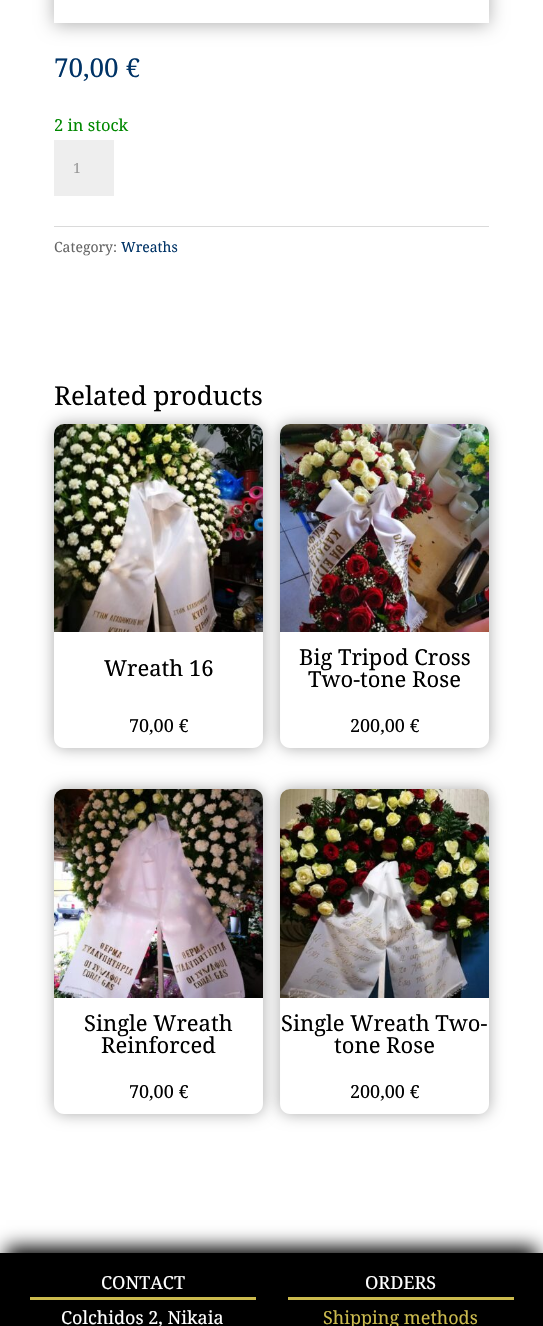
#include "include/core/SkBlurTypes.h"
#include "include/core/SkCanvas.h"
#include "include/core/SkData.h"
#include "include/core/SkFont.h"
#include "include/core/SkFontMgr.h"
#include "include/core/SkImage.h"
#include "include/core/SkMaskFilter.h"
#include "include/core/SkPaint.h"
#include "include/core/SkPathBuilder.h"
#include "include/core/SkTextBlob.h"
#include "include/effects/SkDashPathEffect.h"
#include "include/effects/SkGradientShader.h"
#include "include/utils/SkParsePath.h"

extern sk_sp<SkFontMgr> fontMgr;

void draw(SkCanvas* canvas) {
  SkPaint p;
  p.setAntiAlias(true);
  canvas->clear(SK_ColorWHITE);
  canvas->save();
  canvas->clipPath(SkPathBuilder(SkPathFillType::kEvenOdd).moveTo(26, 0).lineTo(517, 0).lineTo(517, 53).lineTo(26, 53).close().moveTo(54, -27).lineTo(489, -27).lineTo(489, 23).lineTo(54, 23).close().detach(), true);
  p.setColor(SkColorSetARGB(77, 0, 0, 0));
  p.setMaskFilter(SkMaskFilter::MakeBlur(kNormal_SkBlurStyle, 9));
  canvas->drawRect(SkRect::MakeLTRB(54, -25, 489, 25), p);
  p.setMaskFilter(nullptr);
  canvas->restore();
  p.setColor(SkColorSetRGB(238, 238, 238));
  canvas->drawRect(SkRect::MakeLTRB(54, 140, 114, 196), p);
  p.setColor(SkColorSetRGB(218, 218, 218));
  canvas->drawRect(SkRect::MakeLTRB(54, 226, 489, 227), p);
  canvas->save();
  canvas->clipPath(SkPathBuilder(SkPathFillType::kEvenOdd).moveTo(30, 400).lineTo(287, 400).lineTo(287, 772).lineTo(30, 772).close().moveTo(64, 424).lineTo(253, 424).cubicTo(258.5f, 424, 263, 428.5f, 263, 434).lineTo(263, 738).cubicTo(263, 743.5f, 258.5f, 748, 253, 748).lineTo(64, 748).cubicTo(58.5f, 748, 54, 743.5f, 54, 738).lineTo(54, 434).cubicTo(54, 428.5f, 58.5f, 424, 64, 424).close().detach(), true);
  p.setColor(SkColorSetARGB(84, 0, 0, 0));
  p.setMaskFilter(SkMaskFilter::MakeBlur(kNormal_SkBlurStyle, 7.5f));
  canvas->drawRoundRect(SkRect::MakeLTRB(54, 424, 263, 748), 10, 10, p);
  p.setMaskFilter(nullptr);
  canvas->restore();
  canvas->drawImageRect(SkImages::DeferredFromEncodedData(SkData::MakeFromFileName("images/1.png")), SkRect::MakeLTRB(54, 424, 263, 632), SkSamplingOptions());
  canvas->save();
  canvas->clipPath(SkPathBuilder(SkPathFillType::kEvenOdd).moveTo(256, 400).lineTo(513, 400).lineTo(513, 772).lineTo(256, 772).close().moveTo(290, 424).lineTo(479, 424).cubicTo(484.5f, 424, 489, 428.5f, 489, 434).lineTo(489, 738).cubicTo(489, 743.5f, 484.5f, 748, 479, 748).lineTo(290, 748).cubicTo(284.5f, 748, 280, 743.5f, 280, 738).lineTo(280, 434).cubicTo(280, 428.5f, 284.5f, 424, 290, 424).close().detach(), true);
  p.setMaskFilter(SkMaskFilter::MakeBlur(kNormal_SkBlurStyle, 7.5f));
  canvas->drawRoundRect(SkRect::MakeLTRB(280, 424, 489, 748), 10, 10, p);
  p.setMaskFilter(nullptr);
  canvas->restore();
  canvas->drawImageRect(SkImages::DeferredFromEncodedData(SkData::MakeFromFileName("images/2.png")), SkRect::MakeLTRB(280, 424, 489, 632), SkSamplingOptions());
  canvas->save();
  canvas->clipPath(SkPathBuilder(SkPathFillType::kEvenOdd).moveTo(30, 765).lineTo(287, 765).lineTo(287, 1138).lineTo(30, 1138).close().moveTo(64, 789).lineTo(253, 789).cubicTo(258.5f, 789, 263, 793.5f, 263, 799).lineTo(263, 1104).cubicTo(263, 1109.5f, 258.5f, 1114, 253, 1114).lineTo(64, 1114).cubicTo(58.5f, 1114, 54, 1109.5f, 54, 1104).lineTo(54, 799).cubicTo(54, 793.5f, 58.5f, 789, 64, 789).close().detach(), true);
  p.setMaskFilter(SkMaskFilter::MakeBlur(kNormal_SkBlurStyle, 7.5f));
  canvas->drawRoundRect(SkRect::MakeLTRB(54, 789, 263, 1114), 10, 10, p);
  p.setMaskFilter(nullptr);
  canvas->restore();
  canvas->drawImageRect(SkImages::DeferredFromEncodedData(SkData::MakeFromFileName("images/3.png")), SkRect::MakeLTRB(54, 789, 263, 998), SkSamplingOptions());
  canvas->save();
  canvas->clipPath(SkPathBuilder(SkPathFillType::kEvenOdd).moveTo(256, 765).lineTo(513, 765).lineTo(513, 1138).lineTo(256, 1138).close().moveTo(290, 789).lineTo(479, 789).cubicTo(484.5f, 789, 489, 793.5f, 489, 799).lineTo(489, 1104).cubicTo(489, 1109.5f, 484.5f, 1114, 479, 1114).lineTo(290, 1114).cubicTo(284.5f, 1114, 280, 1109.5f, 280, 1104).lineTo(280, 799).cubicTo(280, 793.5f, 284.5f, 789, 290, 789).close().detach(), true);
  p.setMaskFilter(SkMaskFilter::MakeBlur(kNormal_SkBlurStyle, 7.5f));
  canvas->drawRoundRect(SkRect::MakeLTRB(280, 789, 489, 1114), 10, 10, p);
  p.setMaskFilter(nullptr);
  canvas->restore();
  canvas->drawImageRect(SkImages::DeferredFromEncodedData(SkData::MakeFromFileName("images/4.png")), SkRect::MakeLTRB(280, 789, 489, 998), SkSamplingOptions());
  p.setColor(SK_ColorBLACK);
  p.setMaskFilter(SkMaskFilter::MakeBlur(kNormal_SkBlurStyle, 9));
  canvas->drawRect(SkRect::MakeLTRB(6, 1247, 537, 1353), p);
  p.setMaskFilter(nullptr);
  canvas->drawRect(SkRect::MakeLTRB(0, 1253, 543, 1326), p);
  p.setColor(SkColorSetRGB(203, 186, 78));
  canvas->drawRect(SkRect::MakeLTRB(30, 1297, 256, 1300), p);
  canvas->drawRect(SkRect::MakeLTRB(288, 1297, 514, 1300), p);
  SkFont font1(fontMgr->matchFamilyStyle("Noto Serif", SkFontStyle::Normal()), 26);
  font1.setSubpixel(true);
  p.setColor(SkColorSetRGB(0, 51, 102));
  canvas->drawString("70,00 €", 54, 77, font1, p);
  SkFont font2(fontMgr->matchFamilyStyle("Noto Serif", SkFontStyle::Normal()), 16.5f);
  font2.setSubpixel(true);
  p.setColor(SkColorSetRGB(0, 136, 0));
  canvas->drawString("2 in stock", 54, 131, font2, p);
  SkFont font3(fontMgr->matchFamilyStyle("Noto Serif", SkFontStyle::Normal()), 14);
  font3.setSubpixel(true);
  p.setColor(SkColorSetRGB(153, 153, 153));
  canvas->drawString("1", 73, 173, font3, p);
  p.setColor(SkColorSetRGB(102, 102, 102));
  canvas->drawString("Category:", 54, 252, font3, p);
  p.setColor(SkColorSetRGB(0, 51, 102));
  canvas->drawString("Wreaths", 121, 252, font3, p);
  p.setColor(SK_ColorBLACK);
  canvas->drawString("Related products", 54, 405, font1, p);
  SkFont font4(fontMgr->matchFamilyStyle("Noto Serif", SkFontStyle::Normal()), 22);
  font4.setSubpixel(true);
  canvas->drawString("Wreath 16", 104, 676, font4, p);
  SkFont font5(fontMgr->matchFamilyStyle("Noto Serif", SkFontStyle::Normal()), 18);
  font5.setSubpixel(true);
  canvas->drawString("70,00 €", 129, 732, font5, p);
  canvas->drawString("Big Tripod Cross", 299, 665, font4, p);
  canvas->drawString("Two-tone Rose", 308, 687, font4, p);
  canvas->drawString("200,00 €", 350, 732, font5, p);
  canvas->drawString("Single Wreath", 84, 1031, font4, p);
  canvas->drawString("Reinforced", 101, 1053, font4, p);
  canvas->drawString("70,00 €", 129, 1098, font5, p);
  canvas->drawString("Single Wreath Two-", 281, 1031, font4, p);
  canvas->drawString("tone Rose", 334, 1053, font4, p);
  canvas->drawString("200,00 €", 350, 1098, font5, p);
  p.setColor(SK_ColorWHITE);
  canvas->drawString("CONTACT", 101, 1289, font5, p);
  canvas->drawString("Colchidos 2, Nikaia", 61, 1324, font5, p);
  canvas->drawString("ORDERS", 365, 1289, font5, p);
  p.setColor(SkColorSetRGB(203, 186, 78));
  canvas->drawString("Shipping methods", 323, 1324, font5, p);
}
